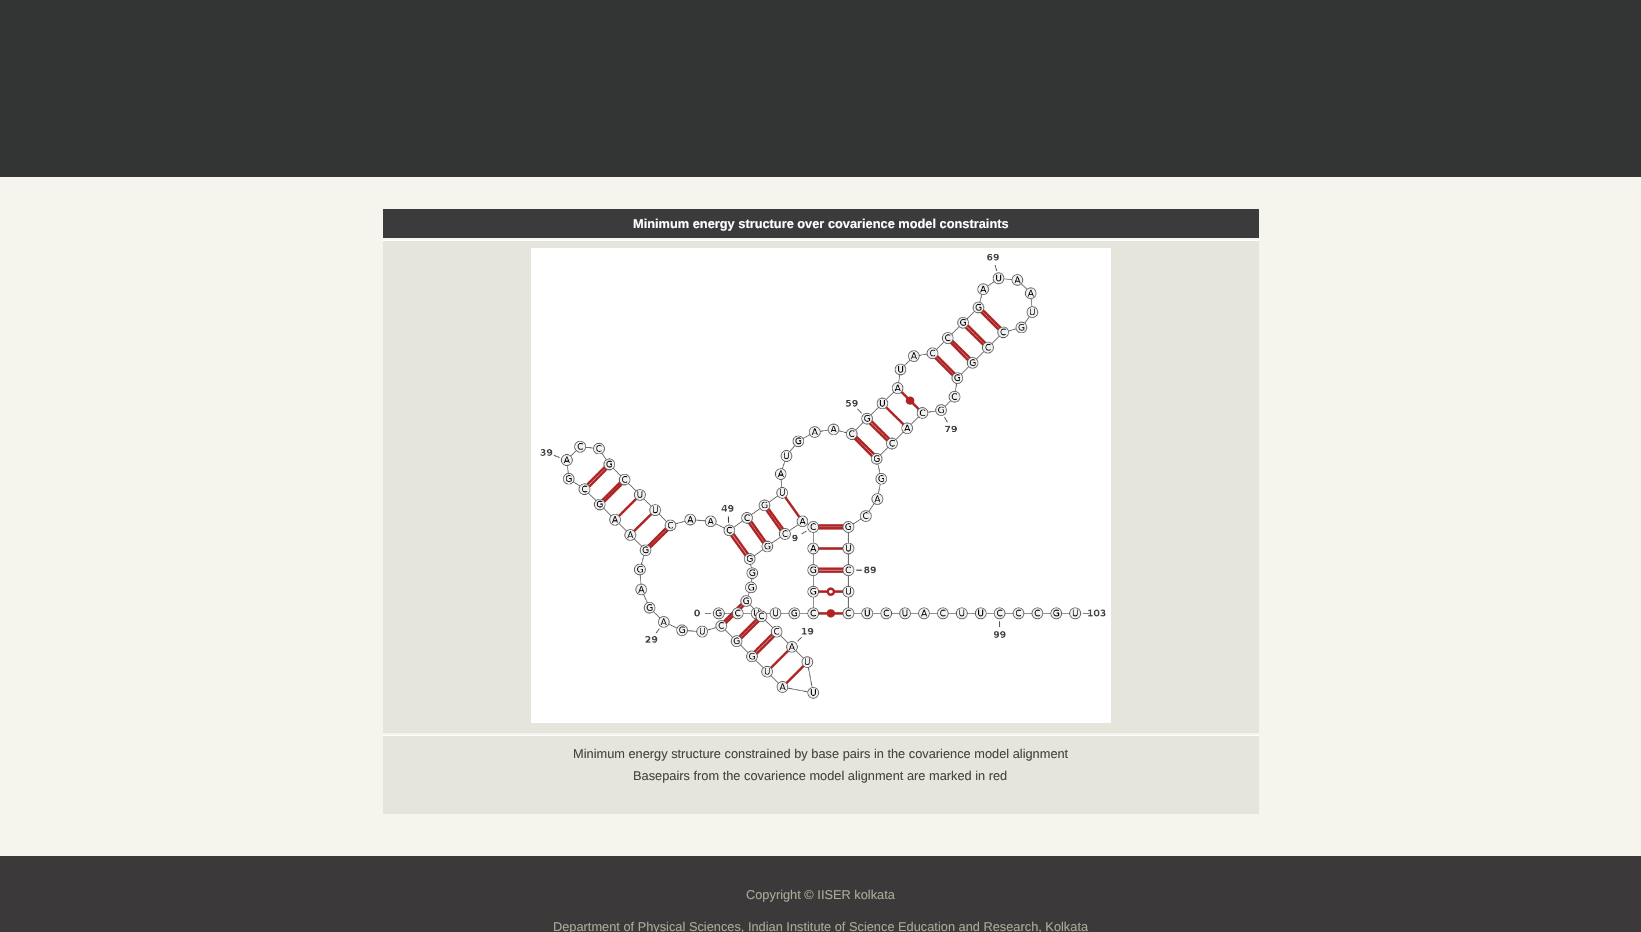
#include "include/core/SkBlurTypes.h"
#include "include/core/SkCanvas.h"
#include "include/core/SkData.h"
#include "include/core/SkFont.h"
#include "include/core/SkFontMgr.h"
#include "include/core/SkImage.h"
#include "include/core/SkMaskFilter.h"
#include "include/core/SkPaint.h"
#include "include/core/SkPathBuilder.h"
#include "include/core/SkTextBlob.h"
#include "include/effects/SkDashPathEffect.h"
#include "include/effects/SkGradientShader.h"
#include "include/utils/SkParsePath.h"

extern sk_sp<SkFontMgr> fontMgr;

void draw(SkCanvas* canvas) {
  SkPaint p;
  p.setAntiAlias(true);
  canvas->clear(SkColorSetRGB(245, 245, 238));
  p.setColor(SkColorSetRGB(50, 53, 52));
  canvas->drawRect(SkRect::MakeLTRB(0, 0, 1641, 177), p);
  p.setColor(SkColorSetRGB(59, 59, 59));
  canvas->drawRect(SkRect::MakeLTRB(383, 209, 1259, 238), p);
  p.setColor(SkColorSetRGB(229, 229, 219));
  canvas->drawRect(SkRect::MakeLTRB(383, 241, 1259, 733), p);
  p.setColor(SK_ColorWHITE);
  canvas->drawRect(SkRect::MakeLTRB(383, 240, 1259, 241), p);
  canvas->drawImageRect(SkImages::DeferredFromEncodedData(SkData::MakeFromFileName("images/1.png")), SkRect::MakeLTRB(531, 248, 1111, 723), SkSamplingOptions());
  p.setColor(SkColorSetRGB(229, 229, 219));
  canvas->drawRect(SkRect::MakeLTRB(383, 736, 1259, 814), p);
  p.setColor(SK_ColorWHITE);
  canvas->drawRect(SkRect::MakeLTRB(383, 735, 1259, 736), p);
  p.setColor(SkColorSetRGB(59, 57, 57));
  canvas->drawRect(SkRect::MakeLTRB(0, 856, 1641, 932), p);
  SkFont font1(fontMgr->matchFamilyStyle("Liberation Sans", SkFontStyle::Bold()), 12.8f);
  font1.setSubpixel(true);
  p.setColor(SK_ColorWHITE);
  canvas->drawString("Minimum energy structure over covarience model constraints", 633, 228, font1, p);
  SkFont font2(fontMgr->matchFamilyStyle("Liberation Sans", SkFontStyle::Normal()), 12.8f);
  font2.setSubpixel(true);
  p.setColor(SkColorSetRGB(71, 67, 63));
  canvas->drawString("Minimum energy structure constrained by base pairs in the covarience model alignment", 573, 758, font2, p);
  canvas->drawString("Basepairs from the covarience model alignment are marked in red", 633, 780, font2, p);
  p.setColor(SkColorSetRGB(168, 170, 148));
  canvas->drawString("Copyright © IISER kolkata", 746, 899, font2, p);
  canvas->drawString("Department of Physical Sciences, Indian Institute of Science Education and Research, Kolkata", 553, 931, font2, p);
}
